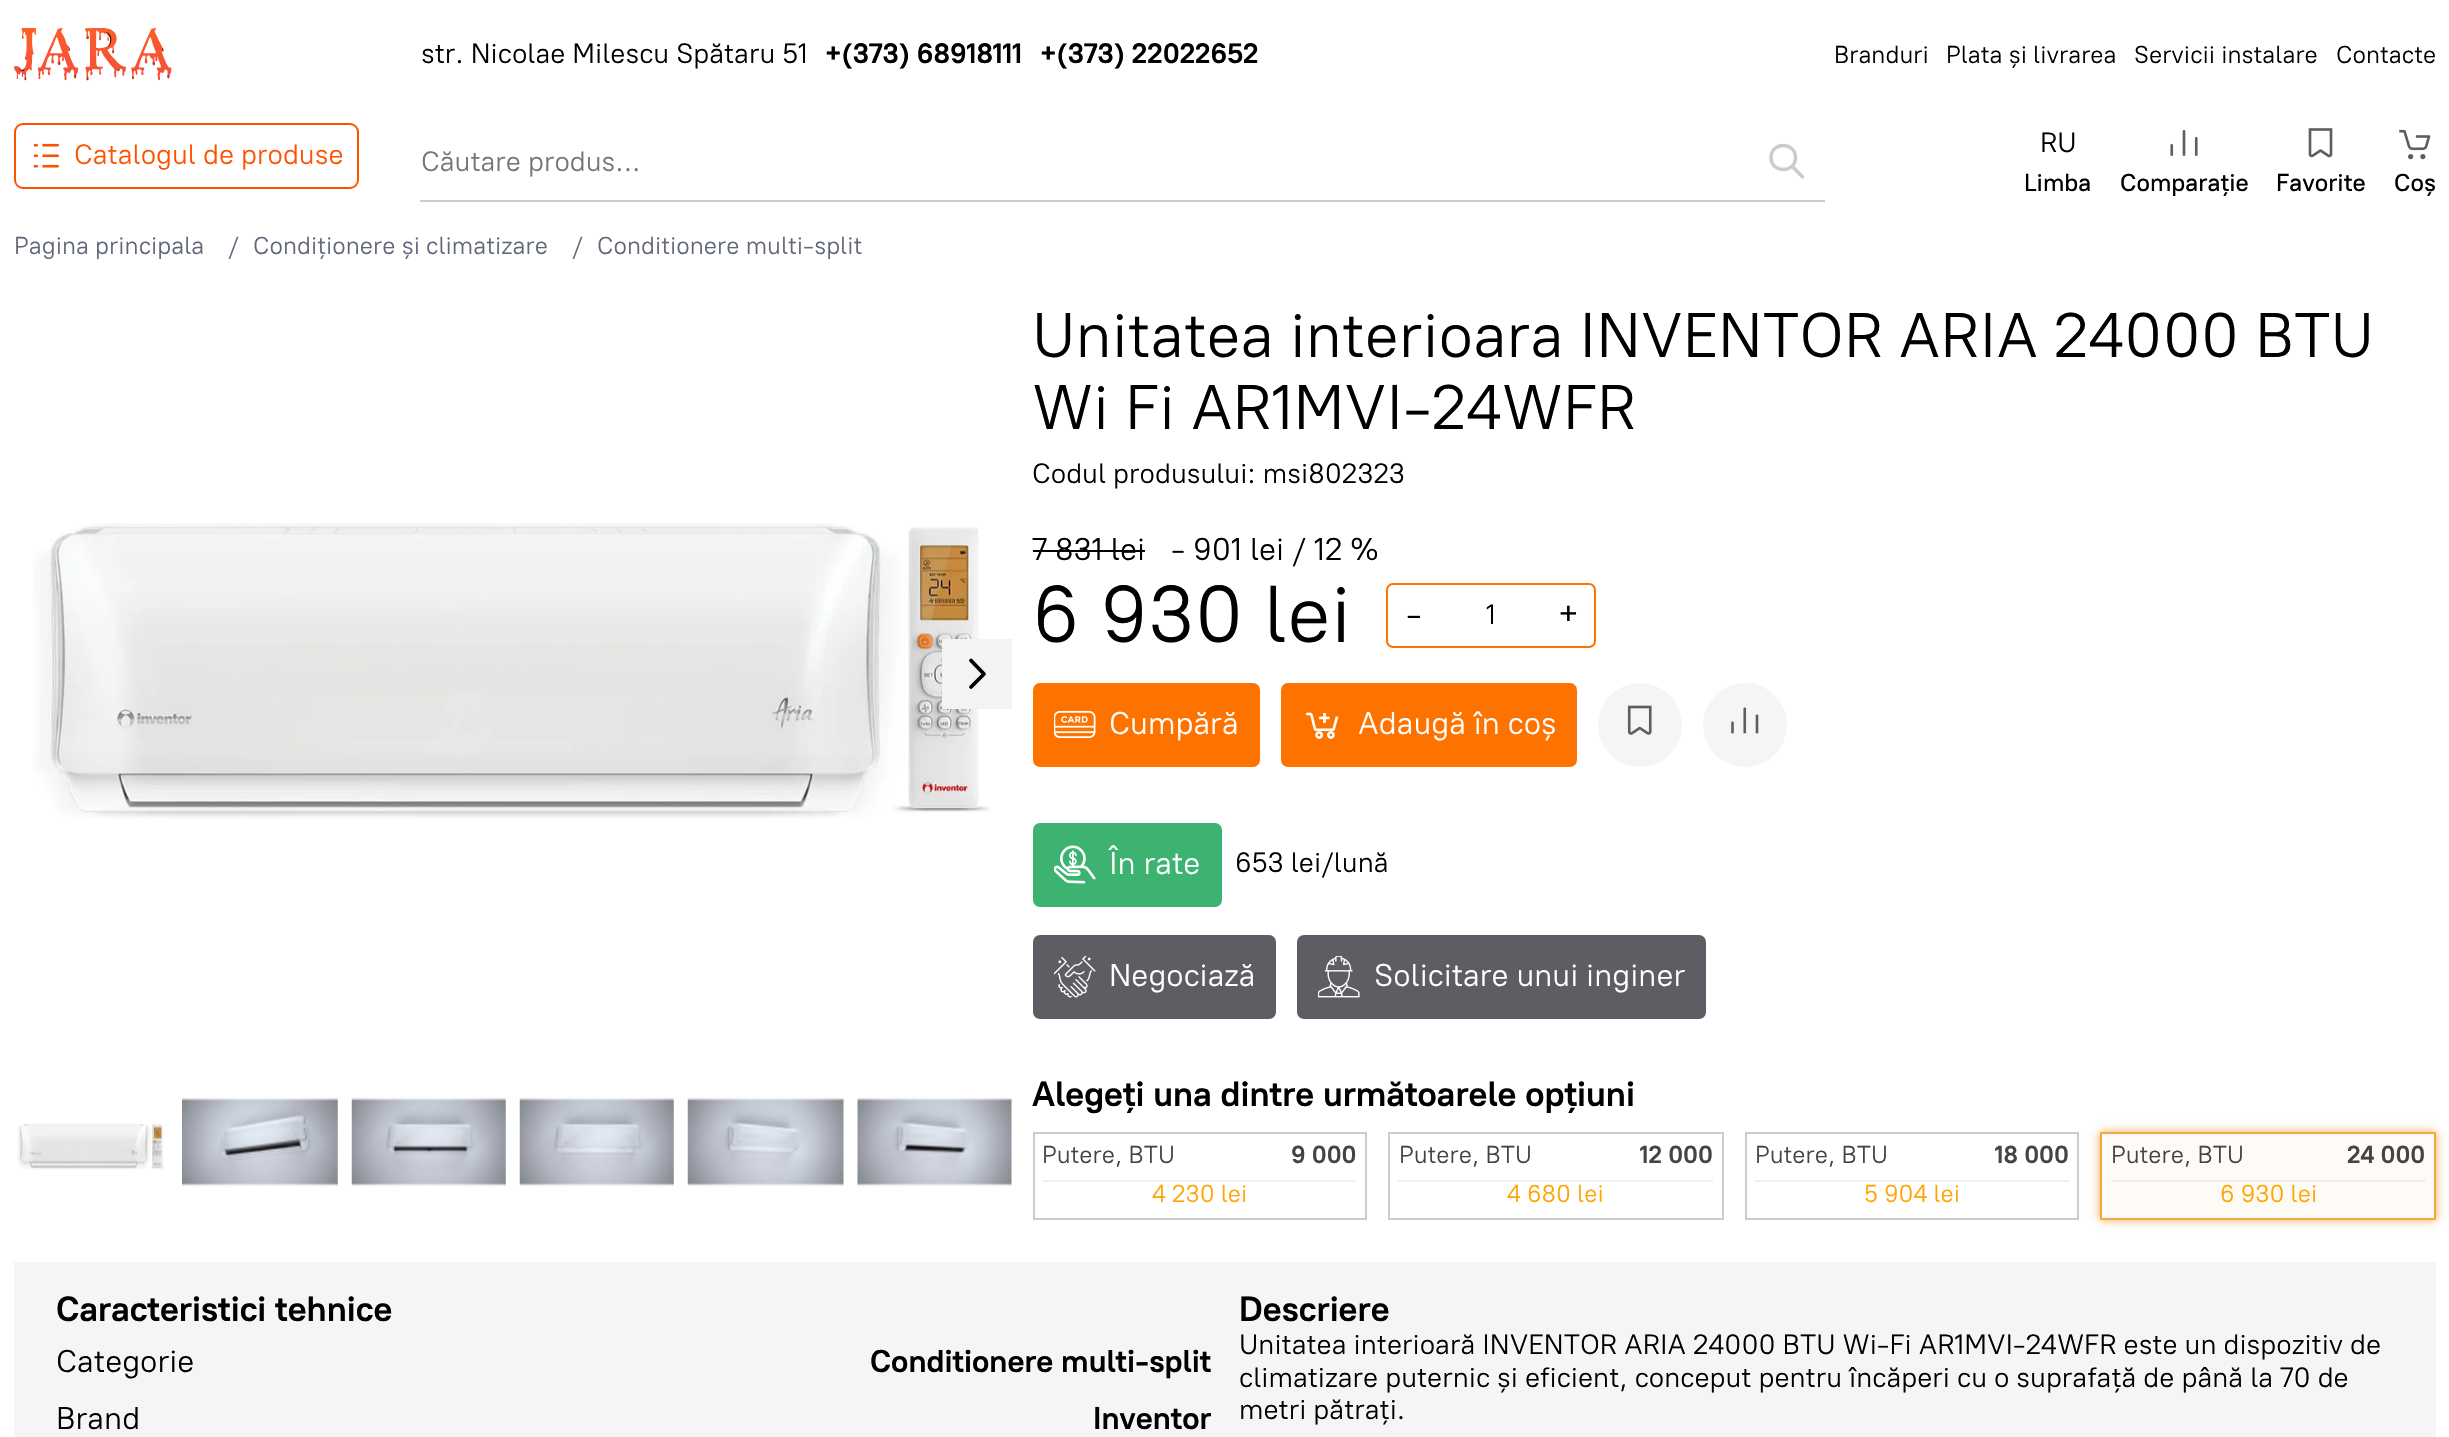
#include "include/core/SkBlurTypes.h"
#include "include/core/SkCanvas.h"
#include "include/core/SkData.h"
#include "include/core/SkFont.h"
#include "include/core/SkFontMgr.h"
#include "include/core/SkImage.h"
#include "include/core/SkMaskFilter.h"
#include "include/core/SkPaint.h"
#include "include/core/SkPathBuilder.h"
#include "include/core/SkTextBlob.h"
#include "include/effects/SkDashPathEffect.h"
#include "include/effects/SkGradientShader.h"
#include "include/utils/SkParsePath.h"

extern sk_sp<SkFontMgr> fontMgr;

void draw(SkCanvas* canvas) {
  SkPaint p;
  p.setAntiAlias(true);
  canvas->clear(SK_ColorWHITE);
  canvas->drawImageRect(SkImages::DeferredFromEncodedData(SkData::MakeFromFileName("images/1.png")), SkRect::MakeLTRB(14, 28, 172, 81), SkSamplingOptions());
  p.setStyle(SkPaint::kStroke_Style);
  p.setStrokeWidth(2);
  p.setColor(SkColorSetRGB(255, 82, 0));
  canvas->drawRoundRect(SkRect::MakeLTRB(15, 124, 358, 188), 8, 8, p);
  canvas->drawImageRect(SkImages::DeferredFromEncodedData(SkData::MakeFromFileName("images/2.png")), SkRect::MakeLTRB(33, 143, 59, 168), SkSamplingOptions());
  p.setStyle(SkPaint::kFill_Style);
  p.setColor(SkColorSetRGB(204, 204, 204));
  canvas->drawRect(SkRect::MakeLTRB(420, 200, 1825, 202), p);
  p.setStyle(SkPaint::kStroke_Style);
  p.setStrokeWidth(3.5f);
  p.setStrokeCap(SkPaint::kRound_Cap);
  p.setStrokeJoin(SkPaint::kRound_Join);
  canvas->drawPath(SkPathBuilder().moveTo(1802.5f, 177).lineTo(1792, 166).moveTo(1795.5f, 157.5f).cubicTo(1795.5f, 173.5f, 1771, 173.5f, 1771, 157.5f).cubicTo(1771, 141.5f, 1795.5f, 141.5f, 1795.5f, 157.5f).close().detach(), p);
  canvas->drawImageRect(SkImages::DeferredFromEncodedData(SkData::MakeFromFileName("images/3.png")), SkRect::MakeLTRB(2170, 130, 2198, 156), SkSamplingOptions());
  canvas->drawImageRect(SkImages::DeferredFromEncodedData(SkData::MakeFromFileName("images/4.png")), SkRect::MakeLTRB(2308, 128, 2333, 158), SkSamplingOptions());
  canvas->drawImageRect(SkImages::DeferredFromEncodedData(SkData::MakeFromFileName("images/5.png")), SkRect::MakeLTRB(2399, 129, 2431, 160), SkSamplingOptions());
  canvas->drawImageRect(SkImages::DeferredFromEncodedData(SkData::MakeFromFileName("images/6.png")), SkRect::MakeLTRB(33, 523, 990, 819), SkSamplingOptions());
  p.setStyle(SkPaint::kFill_Style);
  p.setColor(SkColorSetRGB(243, 243, 243));
  canvas->drawRect(SkRect::MakeLTRB(942, 639, 1012, 709), p);
  p.setStyle(SkPaint::kStroke_Style);
  p.setStrokeWidth(3.8f);
  p.setColor(SK_ColorBLACK);
  canvas->drawPath(SkPathBuilder().moveTo(971, 660.5f).lineTo(984, 674).lineTo(971, 687).detach(), p);
  canvas->drawImageRect(SkImages::DeferredFromEncodedData(SkData::MakeFromFileName("images/7.png")), SkRect::MakeLTRB(17, 1123, 164, 1170), SkSamplingOptions());
  canvas->drawImageRect(SkImages::DeferredFromEncodedData(SkData::MakeFromFileName("images/8.png")), SkRect::MakeLTRB(182, 1097, 338, 1187), SkSamplingOptions());
  canvas->drawImageRect(SkImages::DeferredFromEncodedData(SkData::MakeFromFileName("images/9.png")), SkRect::MakeLTRB(351, 1097, 506, 1187), SkSamplingOptions());
  canvas->drawImageRect(SkImages::DeferredFromEncodedData(SkData::MakeFromFileName("images/10.png")), SkRect::MakeLTRB(519, 1097, 674, 1187), SkSamplingOptions());
  canvas->drawImageRect(SkImages::DeferredFromEncodedData(SkData::MakeFromFileName("images/11.png")), SkRect::MakeLTRB(687, 1097, 844, 1187), SkSamplingOptions());
  canvas->drawImageRect(SkImages::DeferredFromEncodedData(SkData::MakeFromFileName("images/12.png")), SkRect::MakeLTRB(857, 1097, 1012, 1187), SkSamplingOptions());
  p.setStyle(SkPaint::kFill_Style);
  canvas->drawRect(SkRect::MakeLTRB(1033, 550, 1145, 552), p);
  p.setStyle(SkPaint::kStroke_Style);
  p.setStrokeWidth(2);
  p.setStrokeCap(SkPaint::kButt_Cap);
  p.setStrokeJoin(SkPaint::kMiter_Join);
  p.setColor(SkColorSetRGB(254, 114, 0));
  canvas->drawRoundRect(SkRect::MakeLTRB(1387, 584, 1595, 647), 6, 6, p);
  p.setStyle(SkPaint::kFill_Style);
  canvas->drawRoundRect(SkRect::MakeLTRB(1033, 683, 1260, 767), 7, 7, p);
  canvas->drawImageRect(SkImages::DeferredFromEncodedData(SkData::MakeFromFileName("images/13.png")), SkRect::MakeLTRB(1054, 710, 1096, 739), SkSamplingOptions());
  canvas->drawRoundRect(SkRect::MakeLTRB(1281, 683, 1577, 767), 7, 7, p);
  canvas->drawImageRect(SkImages::DeferredFromEncodedData(SkData::MakeFromFileName("images/14.png")), SkRect::MakeLTRB(1306, 712, 1339, 739), SkSamplingOptions());
  p.setColor(SkColorSetRGB(245, 245, 246));
  canvas->drawCircle(1640, 725, 42, p);
  canvas->drawImageRect(SkImages::DeferredFromEncodedData(SkData::MakeFromFileName("images/15.png")), SkRect::MakeLTRB(1627, 705, 1652, 735), SkSamplingOptions());
  canvas->drawCircle(1745, 725, 42, p);
  canvas->drawImageRect(SkImages::DeferredFromEncodedData(SkData::MakeFromFileName("images/16.png")), SkRect::MakeLTRB(1731, 707, 1759, 734), SkSamplingOptions());
  p.setColor(SkColorSetRGB(60, 179, 113));
  canvas->drawRoundRect(SkRect::MakeLTRB(1033, 823, 1222, 907), 7, 7, p);
  canvas->drawImageRect(SkImages::DeferredFromEncodedData(SkData::MakeFromFileName("images/17.png")), SkRect::MakeLTRB(1054, 845, 1096, 884), SkSamplingOptions());
  p.setColor(SkColorSetRGB(93, 93, 100));
  canvas->drawRoundRect(SkRect::MakeLTRB(1033, 935, 1276, 1019), 7, 7, p);
  canvas->drawImageRect(SkImages::DeferredFromEncodedData(SkData::MakeFromFileName("images/18.png")), SkRect::MakeLTRB(1054, 956, 1096, 998), SkSamplingOptions());
  canvas->drawRoundRect(SkRect::MakeLTRB(1297, 935, 1706, 1019), 7, 7, p);
  canvas->drawImageRect(SkImages::DeferredFromEncodedData(SkData::MakeFromFileName("images/19.png")), SkRect::MakeLTRB(1318, 956, 1360, 998), SkSamplingOptions());
  p.setStyle(SkPaint::kStroke_Style);
  p.setColor(SkColorSetRGB(204, 204, 204));
  canvas->drawRect(SkRect::MakeLTRB(1034, 1133, 1366, 1219), p);
  p.setStyle(SkPaint::kFill_Style);
  p.setColor(SkColorSetRGB(239, 239, 239));
  canvas->drawRect(SkRect::MakeLTRB(1043, 1180, 1356, 1182), p);
  p.setStyle(SkPaint::kStroke_Style);
  p.setColor(SkColorSetRGB(204, 204, 204));
  canvas->drawRect(SkRect::MakeLTRB(1389, 1133, 1723, 1219), p);
  p.setStyle(SkPaint::kFill_Style);
  p.setColor(SkColorSetRGB(239, 239, 239));
  canvas->drawRect(SkRect::MakeLTRB(1398, 1180, 1713, 1182), p);
  p.setStyle(SkPaint::kStroke_Style);
  p.setColor(SkColorSetRGB(204, 204, 204));
  canvas->drawRect(SkRect::MakeLTRB(1746, 1133, 2078, 1219), p);
  p.setStyle(SkPaint::kFill_Style);
  p.setColor(SkColorSetRGB(239, 239, 239));
  canvas->drawRect(SkRect::MakeLTRB(1755, 1180, 2069, 1182), p);
  p.setColor(SkColorSetRGB(243, 168, 71));
  p.setMaskFilter(SkMaskFilter::MakeBlur(kNormal_SkBlurStyle, 4.5f));
  canvas->drawRect(SkRect::MakeLTRB(2100, 1132, 2436, 1220), p);
  p.setMaskFilter(nullptr);
  p.setColor(SkColorSetRGB(254, 250, 246));
  canvas->drawRect(SkRect::MakeLTRB(2101, 1133, 2435, 1219), p);
  p.setStyle(SkPaint::kStroke_Style);
  p.setColor(SkColorSetRGB(243, 168, 71));
  canvas->drawRect(SkRect::MakeLTRB(2101, 1133, 2435, 1219), p);
  p.setStyle(SkPaint::kFill_Style);
  p.setColor(SkColorSetRGB(239, 239, 239));
  canvas->drawRect(SkRect::MakeLTRB(2111, 1180, 2426, 1182), p);
  p.setColor(SkColorSetRGB(245, 245, 246));
  canvas->drawRect(SkRect::MakeLTRB(14, 1262, 2436, 1437), p);
  SkFont font1(fontMgr->matchFamilyStyle("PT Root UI", SkFontStyle::Normal()), 28);
  font1.setSubpixel(true);
  p.setColor(SK_ColorBLACK);
  canvas->drawString("str. Nicolae Milescu Spătaru 51", 421, 63, font1, p);
  SkFont font2(fontMgr->matchFamilyStyle("PT Root UI", SkFontStyle::Bold()), 28);
  font2.setSubpixel(true);
  canvas->drawString("+(373) 68918111", 825, 63, font2, p);
  canvas->drawString("+(373) 22022652", 1040, 63, font2, p);
  SkFont font3(fontMgr->matchFamilyStyle("PT Root UI", SkFontStyle::Normal()), 24.5f);
  font3.setSubpixel(true);
  canvas->drawString("Branduri", 1834, 63, font3, p);
  canvas->drawString("Plata și livrarea", 1946, 63, font3, p);
  canvas->drawString("Servicii instalare", 2134, 63, font3, p);
  canvas->drawString("Contacte", 2336, 63, font3, p);
  p.setColor(SkColorSetRGB(255, 82, 0));
  canvas->drawString("Catalogul de produse", 74, 164, font1, p);
  p.setColor(SkColorSetRGB(117, 117, 117));
  canvas->drawString("Căutare produs...", 421, 171, font1, p);
  p.setColor(SK_ColorBLACK);
  canvas->drawString("RU", 2040, 152, font1, p);
  SkFont font4(fontMgr->matchFamilyStyle("PT Root UI", SkFontStyle(500, SkFontStyle::kNormal_Width, SkFontStyle::kUpright_Slant)), 24.5f);
  font4.setSubpixel(true);
  canvas->drawString("Limba", 2024, 191, font4, p);
  canvas->drawString("Comparație", 2120, 191, font4, p);
  canvas->drawString("Favorite", 2276, 191, font4, p);
  canvas->drawString("Coș", 2394, 191, font4, p);
  p.setColor(SkColorSetRGB(97, 102, 123));
  canvas->drawString("Pagina principala", 14, 254, font3, p);
  canvas->drawString("/", 228, 254, font3, p);
  canvas->drawString("Condiționere și climatizare", 253, 254, font3, p);
  canvas->drawString("/", 572, 254, font3, p);
  canvas->drawString("Conditionere multi-split", 597, 254, font3, p);
  SkFont font5(fontMgr->matchFamilyStyle("PT Root UI", SkFontStyle::Normal()), 63);
  font5.setSubpixel(true);
  p.setColor(SK_ColorBLACK);
  canvas->drawString("Unitatea interioara INVENTOR ARIA 24000 BTU", 1032, 357, font5, p);
  canvas->drawString("Wi Fi AR1MVI-24WFR", 1032, 429, font5, p);
  canvas->drawString("Codul produsului: msi802323", 1032, 483, font1, p);
  SkFont font6(fontMgr->matchFamilyStyle("PT Root UI", SkFontStyle::Normal()), 31.5f);
  font6.setSubpixel(true);
  canvas->drawString("7 831 lei", 1032, 560, font6, p);
  canvas->drawString("- 901 lei / 12 %", 1171, 560, font6, p);
  SkFont font7(fontMgr->matchFamilyStyle("PT Root UI", SkFontStyle::Normal()), 80.5f);
  font7.setSubpixel(true);
  canvas->drawString("6 930 lei", 1032, 642, font7, p);
  SkFont font8(fontMgr->matchFamilyStyle("PT Root UI", SkFontStyle::Normal()), 35);
  font8.setSubpixel(true);
  canvas->drawString("-", 1406, 626, font8, p);
  canvas->drawString("1", 1486, 624, font1, p);
  canvas->drawString("+", 1558, 626, font8, p);
  p.setColor(SK_ColorWHITE);
  canvas->drawString("Cumpără", 1109, 734, font6, p);
  canvas->drawString("Adaugă în coș", 1358, 734, font6, p);
  canvas->drawString("În rate", 1109, 874, font6, p);
  p.setColor(SK_ColorBLACK);
  canvas->drawString("653 lei/lună", 1235, 872, font1, p);
  p.setColor(SK_ColorWHITE);
  canvas->drawString("Negociază", 1109, 986, font6, p);
  canvas->drawString("Solicitare unui inginer", 1374, 986, font6, p);
  SkFont font9(fontMgr->matchFamilyStyle("PT Root UI", SkFontStyle::Bold()), 35);
  font9.setSubpixel(true);
  p.setColor(SK_ColorBLACK);
  canvas->drawString("Alegeți una dintre următoarele opțiuni", 1032, 1106, font9, p);
  p.setColor(SkColorSetRGB(68, 68, 68));
  canvas->drawString("Putere, BTU", 1042, 1163, font3, p);
  SkFont font10(fontMgr->matchFamilyStyle("PT Root UI", SkFontStyle::Bold()), 24.5f);
  font10.setSubpixel(true);
  canvas->drawString("9 000", 1291, 1163, font10, p);
  p.setColor(SkColorSetRGB(255, 165, 0));
  canvas->drawString("4 230 lei", 1152, 1202, font3, p);
  p.setColor(SkColorSetRGB(68, 68, 68));
  canvas->drawString("Putere, BTU", 1399, 1163, font3, p);
  canvas->drawString("12 000", 1640, 1163, font10, p);
  p.setColor(SkColorSetRGB(255, 165, 0));
  canvas->drawString("4 680 lei", 1507, 1202, font3, p);
  p.setColor(SkColorSetRGB(68, 68, 68));
  canvas->drawString("Putere, BTU", 1755, 1163, font3, p);
  canvas->drawString("18 000", 1995, 1163, font10, p);
  p.setColor(SkColorSetRGB(255, 165, 0));
  canvas->drawString("5 904 lei", 1864, 1202, font3, p);
  p.setColor(SkColorSetRGB(68, 68, 68));
  canvas->drawString("Putere, BTU", 2111, 1163, font3, p);
  canvas->drawString("24 000", 2347, 1163, font10, p);
  p.setColor(SkColorSetRGB(255, 165, 0));
  canvas->drawString("6 930 lei", 2220, 1202, font3, p);
  p.setColor(SK_ColorBLACK);
  canvas->drawString("Caracteristici tehnice", 56, 1321, font9, p);
  canvas->drawString("Categorie", 56, 1372, font6, p);
  SkFont font11(fontMgr->matchFamilyStyle("PT Root UI", SkFontStyle::Bold()), 31.5f);
  font11.setSubpixel(true);
  canvas->drawString("Conditionere multi-split", 870, 1372, font11, p);
  canvas->drawString("Brand", 56, 1429, font6, p);
  canvas->drawString("Inventor", 1093, 1429, font11, p);
  canvas->drawString("Descriere", 1239, 1321, font9, p);
  canvas->drawString("Unitatea interioară INVENTOR ARIA 24000 BTU Wi-Fi AR1MVI-24WFR este un dispozitiv de", 1239, 1354, font1, p);
  canvas->drawString("climatizare puternic și eficient, conceput pentru încăperi cu o suprafață de până la 70 de", 1239, 1387, font1, p);
  canvas->drawString("metri pătrați.", 1239, 1419, font1, p);
}
